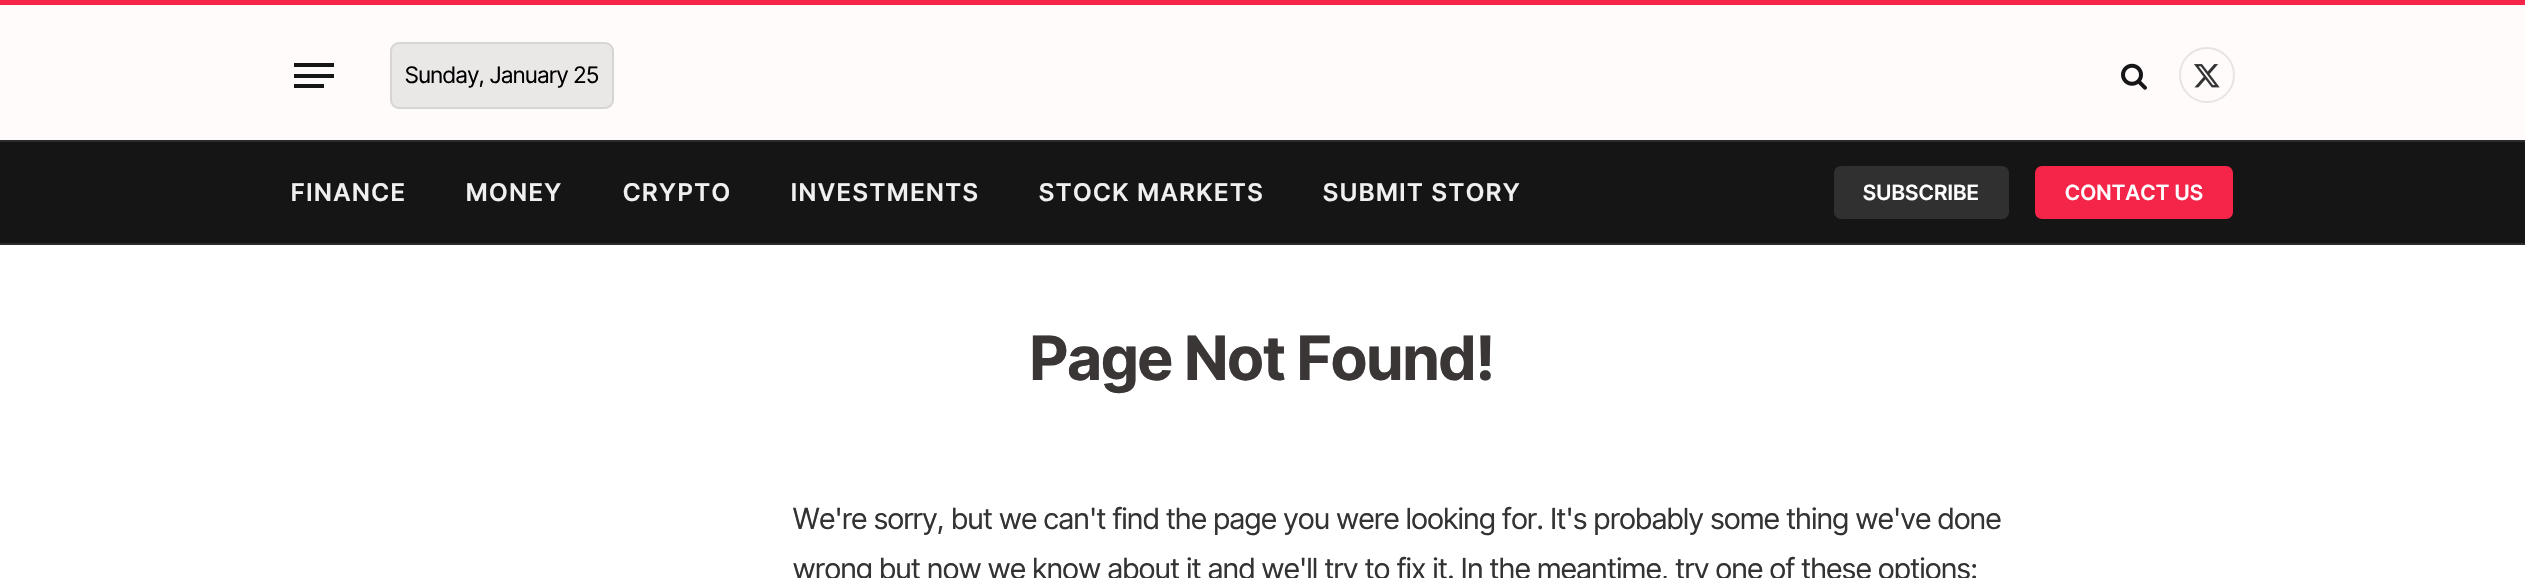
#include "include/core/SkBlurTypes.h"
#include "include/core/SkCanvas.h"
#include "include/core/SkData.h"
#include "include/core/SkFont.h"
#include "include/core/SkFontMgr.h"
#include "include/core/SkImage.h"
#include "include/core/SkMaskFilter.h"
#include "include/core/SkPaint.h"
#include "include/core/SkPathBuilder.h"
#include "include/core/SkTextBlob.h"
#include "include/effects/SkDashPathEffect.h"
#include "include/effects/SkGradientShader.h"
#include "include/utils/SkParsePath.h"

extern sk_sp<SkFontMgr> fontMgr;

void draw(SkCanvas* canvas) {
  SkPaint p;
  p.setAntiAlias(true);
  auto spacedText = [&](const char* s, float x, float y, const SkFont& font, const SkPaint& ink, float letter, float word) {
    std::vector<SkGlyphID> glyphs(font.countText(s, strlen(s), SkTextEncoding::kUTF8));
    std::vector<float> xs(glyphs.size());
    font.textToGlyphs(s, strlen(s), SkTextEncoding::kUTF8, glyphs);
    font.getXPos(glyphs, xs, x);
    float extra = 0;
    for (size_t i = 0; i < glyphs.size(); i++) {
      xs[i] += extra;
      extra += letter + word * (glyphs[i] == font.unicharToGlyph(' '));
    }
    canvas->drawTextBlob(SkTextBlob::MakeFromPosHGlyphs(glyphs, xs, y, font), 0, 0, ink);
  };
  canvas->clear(SK_ColorWHITE);
  p.setColor(SkColorSetRGB(255, 251, 251));
  canvas->drawRect(SkRect::MakeLTRB(0, 5, 2525, 140), p);
  p.setColor(SkColorSetRGB(245, 37, 73));
  canvas->drawRect(SkRect::MakeLTRB(0, 0, 2525, 5), p);
  p.setColor(SkColorSetRGB(22, 22, 22));
  canvas->drawRect(SkRect::MakeLTRB(294, 84, 324, 88), p);
  canvas->drawRect(SkRect::MakeLTRB(294, 63, 334, 67), p);
  canvas->drawRect(SkRect::MakeLTRB(294, 74, 334, 78), p);
  p.setColor(SkColorSetRGB(234, 231, 231));
  canvas->drawRoundRect(SkRect::MakeLTRB(390, 42, 614, 109), 9, 9, p);
  p.setStyle(SkPaint::kStroke_Style);
  p.setStrokeWidth(2);
  p.setColor(SkColorSetARGB(51, 137, 137, 137));
  canvas->drawRoundRect(SkRect::MakeLTRB(391, 43, 613, 108), 8, 8, p);
  canvas->drawImageRect(SkImages::DeferredFromEncodedData(SkData::MakeFromFileName("images/1.png")), SkRect::MakeLTRB(2121, 63, 2147, 90), SkSamplingOptions());
  p.setColor(SkColorSetRGB(232, 228, 228));
  canvas->drawCircle(2207, 75, 27, p);
  canvas->drawImageRect(SkImages::DeferredFromEncodedData(SkData::MakeFromFileName("images/2.png")), SkRect::MakeLTRB(2194, 64, 2220, 88), SkSamplingOptions());
  p.setStyle(SkPaint::kFill_Style);
  p.setColor(SkColorSetRGB(21, 21, 21));
  canvas->drawRect(SkRect::MakeLTRB(0, 142, 2525, 243), p);
  p.setColor(SkColorSetRGB(44, 44, 44));
  canvas->drawRect(SkRect::MakeLTRB(0, 140, 2525, 142), p);
  canvas->drawRect(SkRect::MakeLTRB(0, 243, 2525, 245), p);
  p.setColor(SkColorSetRGB(48, 48, 48));
  canvas->drawRoundRect(SkRect::MakeLTRB(1834, 166, 2009, 219), 7, 7, p);
  p.setColor(SkColorSetRGB(245, 37, 73));
  canvas->drawRoundRect(SkRect::MakeLTRB(2035, 166, 2233, 219), 7, 7, p);
  SkFont font1(fontMgr->matchFamilyStyle("Inter Tight", SkFontStyle::Normal()), 22.75f);
  font1.setSubpixel(true);
  p.setColor(SK_ColorBLACK);
  canvas->drawString("Sunday, January 25", 405, 83, font1, p);
  SkFont font2(fontMgr->matchFamilyStyle("Inter Tight", SkFontStyle(600, SkFontStyle::kNormal_Width, SkFontStyle::kUpright_Slant)), 24.5f);
  font2.setSubpixel(true);
  p.setColor(SkColorSetRGB(240, 240, 240));
  spacedText("FINANCE", 291, 201, font2, p, 2, 0);
  spacedText("MONEY", 466, 201, font2, p, 2, 0);
  spacedText("CRYPTO", 623, 201, font2, p, 2, 0);
  spacedText("INVESTMENTS", 791, 201, font2, p, 2, 0);
  spacedText("STOCK MARKETS", 1039, 201, font2, p, 2, 0);
  spacedText("SUBMIT STORY", 1323, 201, font2, p, 2, 0);
  SkFont font3(fontMgr->matchFamilyStyle("Inter Tight", SkFontStyle(600, SkFontStyle::kNormal_Width, SkFontStyle::kUpright_Slant)), 21);
  font3.setSubpixel(true);
  p.setColor(SK_ColorWHITE);
  spacedText("SUBSCRIBE", 1863, 200, font3, p, 0.6f, 0);
  spacedText("CONTACT US", 2065, 200, font3, p, 0.6f, 0);
  SkFont font4(fontMgr->matchFamilyStyle("Inter Tight", SkFontStyle::Bold()), 61.25f);
  font4.setSubpixel(true);
  p.setColor(SkColorSetRGB(58, 54, 54));
  canvas->drawString("Page Not Found!", 1030, 380, font4, p);
  SkFont font5(fontMgr->matchFamilyStyle("Inter Tight", SkFontStyle::Normal()), 29.05f);
  font5.setSubpixel(true);
  p.setColor(SkColorSetRGB(51, 51, 51));
  canvas->drawString("We're sorry, but we can't find the page you were looking for. It's probably some thing we've done", 793, 529, font5, p);
  canvas->drawString("wrong but now we know about it and we'll try to fix it. In the meantime, try one of these options:", 793, 579, font5, p);
}
